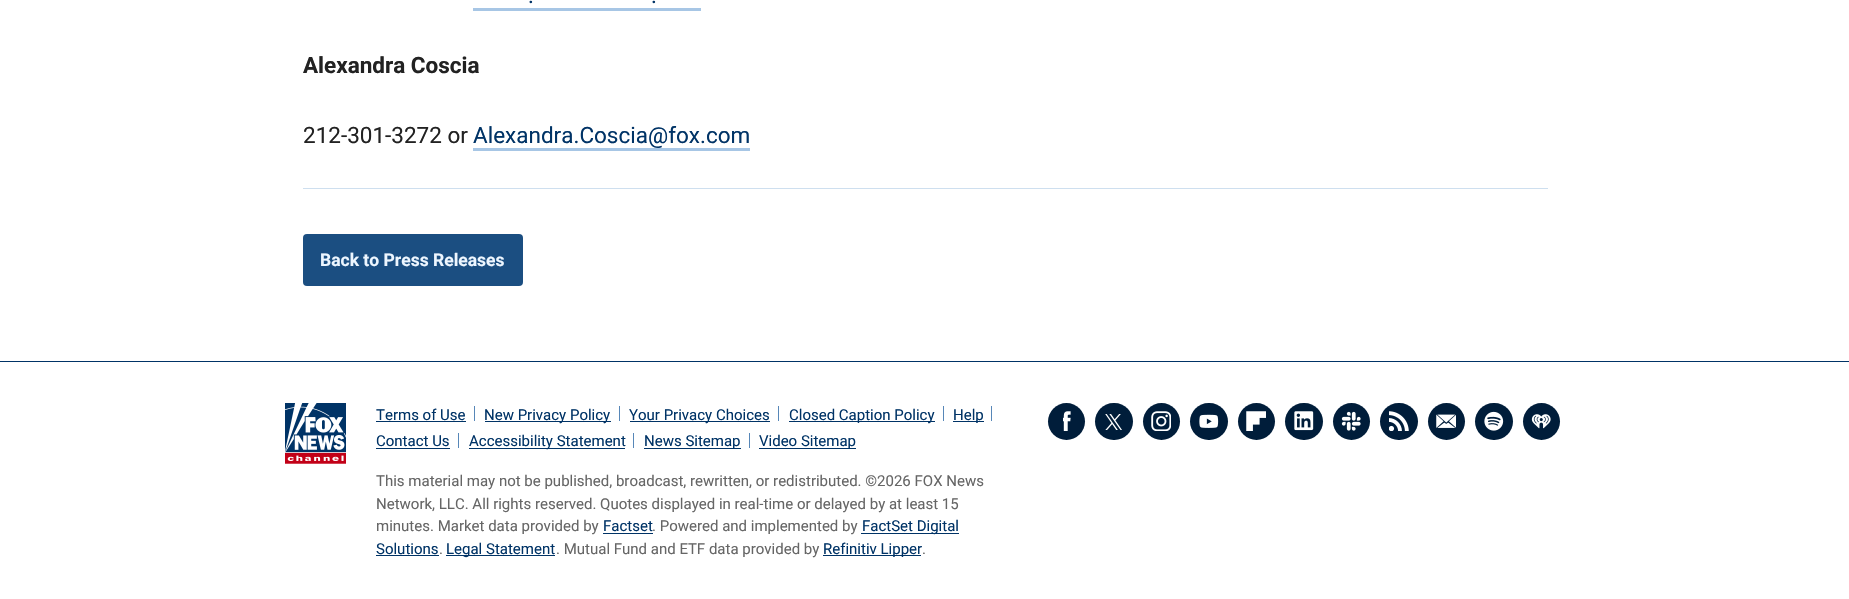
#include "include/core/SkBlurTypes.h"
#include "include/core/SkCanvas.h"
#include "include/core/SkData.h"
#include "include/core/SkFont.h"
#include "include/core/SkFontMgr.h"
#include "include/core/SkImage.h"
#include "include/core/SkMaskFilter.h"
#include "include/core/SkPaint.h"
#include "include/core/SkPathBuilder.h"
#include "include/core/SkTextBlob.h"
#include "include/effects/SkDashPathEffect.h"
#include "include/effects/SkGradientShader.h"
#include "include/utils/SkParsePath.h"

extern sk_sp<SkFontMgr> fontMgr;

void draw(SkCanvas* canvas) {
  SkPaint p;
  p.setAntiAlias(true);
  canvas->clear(SK_ColorWHITE);
  p.setColor(SkColorSetRGB(206, 223, 239));
  canvas->drawRect(SkRect::MakeLTRB(303, 188, 1548, 189), p);
  p.setColor(SkColorSetRGB(167, 198, 229));
  canvas->drawRect(SkRect::MakeLTRB(473, 8, 701, 11), p);
  canvas->drawRect(SkRect::MakeLTRB(473, 148, 750, 151), p);
  p.setColor(SkColorSetRGB(27, 78, 129));
  canvas->drawRoundRect(SkRect::MakeLTRB(303, 234, 523, 286), 4, 4, p);
  p.setColor(SkColorSetRGB(0, 51, 102));
  canvas->drawRect(SkRect::MakeLTRB(0, 361, 1849, 362), p);
  canvas->drawImageRect(SkImages::DeferredFromEncodedData(SkData::MakeFromFileName("images/1.png")), SkRect::MakeLTRB(285, 403, 346, 464), SkSamplingOptions());
  canvas->drawRect(SkRect::MakeLTRB(376, 421, 466, 422), p);
  p.setColor(SkColorSetRGB(87, 135, 184));
  canvas->drawRect(SkRect::MakeLTRB(474, 406, 475, 421), p);
  p.setColor(SkColorSetRGB(0, 51, 102));
  canvas->drawRect(SkRect::MakeLTRB(485, 421, 611, 422), p);
  p.setColor(SkColorSetRGB(87, 135, 184));
  canvas->drawRect(SkRect::MakeLTRB(619, 406, 620, 421), p);
  p.setColor(SkColorSetRGB(0, 51, 102));
  canvas->drawRect(SkRect::MakeLTRB(630, 421, 770, 422), p);
  p.setColor(SkColorSetRGB(87, 135, 184));
  canvas->drawRect(SkRect::MakeLTRB(778, 406, 779, 421), p);
  p.setColor(SkColorSetRGB(0, 51, 102));
  canvas->drawRect(SkRect::MakeLTRB(789, 421, 935, 422), p);
  p.setColor(SkColorSetRGB(87, 135, 184));
  canvas->drawRect(SkRect::MakeLTRB(943, 406, 944, 421), p);
  p.setColor(SkColorSetRGB(0, 51, 102));
  canvas->drawRect(SkRect::MakeLTRB(953, 421, 984, 422), p);
  p.setColor(SkColorSetRGB(87, 135, 184));
  canvas->drawRect(SkRect::MakeLTRB(991, 406, 992, 421), p);
  p.setColor(SkColorSetRGB(0, 51, 102));
  canvas->drawRect(SkRect::MakeLTRB(376, 448, 450, 449), p);
  p.setColor(SkColorSetRGB(87, 135, 184));
  canvas->drawRect(SkRect::MakeLTRB(458, 433, 459, 448), p);
  p.setColor(SkColorSetRGB(0, 51, 102));
  canvas->drawRect(SkRect::MakeLTRB(469, 448, 625, 449), p);
  p.setColor(SkColorSetRGB(87, 135, 184));
  canvas->drawRect(SkRect::MakeLTRB(633, 433, 634, 448), p);
  p.setColor(SkColorSetRGB(0, 51, 102));
  canvas->drawRect(SkRect::MakeLTRB(644, 448, 741, 449), p);
  p.setColor(SkColorSetRGB(87, 135, 184));
  canvas->drawRect(SkRect::MakeLTRB(749, 433, 750, 448), p);
  p.setColor(SkColorSetRGB(0, 51, 102));
  canvas->drawRect(SkRect::MakeLTRB(759, 448, 856, 449), p);
  canvas->drawRect(SkRect::MakeLTRB(603, 533, 653, 534), p);
  canvas->drawRect(SkRect::MakeLTRB(861, 533, 959, 534), p);
  canvas->drawRect(SkRect::MakeLTRB(376, 555, 439, 556), p);
  canvas->drawRect(SkRect::MakeLTRB(446, 555, 555, 556), p);
  canvas->drawRect(SkRect::MakeLTRB(823, 555, 921, 556), p);
  p.setColor(SkColorSetRGB(0, 29, 58));
  canvas->drawCircle(1066.5f, 421.5f, 18.5f, p);
  canvas->drawImageRect(SkImages::DeferredFromEncodedData(SkData::MakeFromFileName("images/2.png")), SkRect::MakeLTRB(1063, 411, 1071, 431), SkSamplingOptions());
  canvas->drawRoundRect(SkRect::MakeLTRB(1095, 403, 1133, 440), 18.5f, 18.5f, p);
  canvas->drawImageRect(SkImages::DeferredFromEncodedData(SkData::MakeFromFileName("images/3.png")), SkRect::MakeLTRB(1105, 414, 1122, 430), SkSamplingOptions());
  canvas->drawCircle(1161.5f, 421.5f, 18.5f, p);
  canvas->drawImageRect(SkImages::DeferredFromEncodedData(SkData::MakeFromFileName("images/4.png")), SkRect::MakeLTRB(1151, 411, 1171, 431), SkSamplingOptions());
  canvas->drawRoundRect(SkRect::MakeLTRB(1190, 403, 1228, 440), 18.5f, 18.5f, p);
  canvas->drawImageRect(SkImages::DeferredFromEncodedData(SkData::MakeFromFileName("images/5.png")), SkRect::MakeLTRB(1199, 414, 1219, 428), SkSamplingOptions());
  canvas->drawCircle(1256.5f, 421.5f, 18.5f, p);
  canvas->drawImageRect(SkImages::DeferredFromEncodedData(SkData::MakeFromFileName("images/6.png")), SkRect::MakeLTRB(1246, 411, 1266, 431), SkSamplingOptions());
  canvas->drawRoundRect(SkRect::MakeLTRB(1285, 403, 1323, 440), 18.5f, 18.5f, p);
  canvas->drawImageRect(SkImages::DeferredFromEncodedData(SkData::MakeFromFileName("images/7.png")), SkRect::MakeLTRB(1294, 411, 1314, 431), SkSamplingOptions());
  canvas->drawCircle(1351.5f, 421.5f, 18.5f, p);
  canvas->drawImageRect(SkImages::DeferredFromEncodedData(SkData::MakeFromFileName("images/8.png")), SkRect::MakeLTRB(1341, 411, 1361, 431), SkSamplingOptions());
  canvas->drawRoundRect(SkRect::MakeLTRB(1380, 403, 1418, 440), 18.5f, 18.5f, p);
  canvas->drawImageRect(SkImages::DeferredFromEncodedData(SkData::MakeFromFileName("images/9.png")), SkRect::MakeLTRB(1389, 411, 1409, 431), SkSamplingOptions());
  canvas->drawCircle(1446.5f, 421.5f, 18.5f, p);
  canvas->drawImageRect(SkImages::DeferredFromEncodedData(SkData::MakeFromFileName("images/10.png")), SkRect::MakeLTRB(1436, 414, 1456, 428), SkSamplingOptions());
  canvas->drawRoundRect(SkRect::MakeLTRB(1475, 403, 1513, 440), 18.5f, 18.5f, p);
  canvas->drawImageRect(SkImages::DeferredFromEncodedData(SkData::MakeFromFileName("images/11.png")), SkRect::MakeLTRB(1484, 411, 1504, 431), SkSamplingOptions());
  canvas->drawCircle(1541.5f, 421.5f, 18.5f, p);
  canvas->drawImageRect(SkImages::DeferredFromEncodedData(SkData::MakeFromFileName("images/12.png")), SkRect::MakeLTRB(1531, 414, 1551, 429), SkSamplingOptions());
  SkFont font1(fontMgr->matchFamilyStyle("Roboto", SkFontStyle::Normal()), 22.5f);
  font1.setSubpixel(true);
  p.setColor(SkColorSetRGB(0, 51, 102));
  canvas->drawString(".", 528, 3, font1, p);
  canvas->drawString(".", 651, 3, font1, p);
  SkFont font2(fontMgr->matchFamilyStyle("Roboto", SkFontStyle::Bold()), 22.5f);
  font2.setSubpixel(true);
  p.setColor(SkColorSetRGB(34, 34, 34));
  canvas->drawString("Alexandra Coscia", 303, 73, font2, p);
  canvas->drawString("212-301-3272 or", 303, 143, font1, p);
  p.setColor(SkColorSetRGB(0, 51, 102));
  canvas->drawString("Alexandra.Coscia@fox.com", 473, 143, font1, p);
  SkFont font3(fontMgr->matchFamilyStyle("Roboto", SkFontStyle::Bold()), 17.5f);
  font3.setSubpixel(true);
  p.setColor(SkColorSetRGB(237, 246, 255));
  canvas->drawString("Back to Press Releases", 320, 266, font3, p);
  SkFont font4(fontMgr->matchFamilyStyle("Roboto", SkFontStyle::Normal()), 15);
  font4.setSubpixel(true);
  p.setColor(SkColorSetRGB(0, 51, 102));
  canvas->drawString("Terms of Use", 376, 420, font4, p);
  canvas->drawString("New Privacy Policy", 484, 420, font4, p);
  canvas->drawString("Your Privacy Choices", 629, 420, font4, p);
  canvas->drawString("Closed Caption Policy", 789, 420, font4, p);
  canvas->drawString("Help", 953, 420, font4, p);
  canvas->drawString("Contact Us", 376, 446, font4, p);
  canvas->drawString("Accessibility Statement", 469, 446, font4, p);
  canvas->drawString("News Sitemap", 644, 446, font4, p);
  canvas->drawString("Video Sitemap", 759, 446, font4, p);
  p.setColor(SkColorSetRGB(102, 102, 102));
  canvas->drawString("This material may not be published, broadcast, rewritten, or redistributed. ©2026 FOX News", 376, 486, font4, p);
  canvas->drawString("Network, LLC. All rights reserved. Quotes displayed in real-time or delayed by at least 15", 376, 509, font4, p);
  canvas->drawString("minutes. Market data provided by", 376, 531, font4, p);
  p.setColor(SkColorSetRGB(0, 51, 102));
  canvas->drawString("Factset", 603, 531, font4, p);
  p.setColor(SkColorSetRGB(102, 102, 102));
  canvas->drawString(". Powered and implemented by", 652, 531, font4, p);
  p.setColor(SkColorSetRGB(0, 51, 102));
  canvas->drawString("FactSet Digital", 862, 531, font4, p);
  canvas->drawString("Solutions", 376, 554, font4, p);
  p.setColor(SkColorSetRGB(102, 102, 102));
  canvas->drawString(".", 439, 554, font4, p);
  p.setColor(SkColorSetRGB(0, 51, 102));
  canvas->drawString("Legal Statement", 446, 554, font4, p);
  p.setColor(SkColorSetRGB(102, 102, 102));
  canvas->drawString(". Mutual Fund and ETF data provided by", 556, 554, font4, p);
  p.setColor(SkColorSetRGB(0, 51, 102));
  canvas->drawString("Refinitiv Lipper", 823, 554, font4, p);
  p.setColor(SkColorSetRGB(102, 102, 102));
  canvas->drawString(".", 922, 554, font4, p);
}
